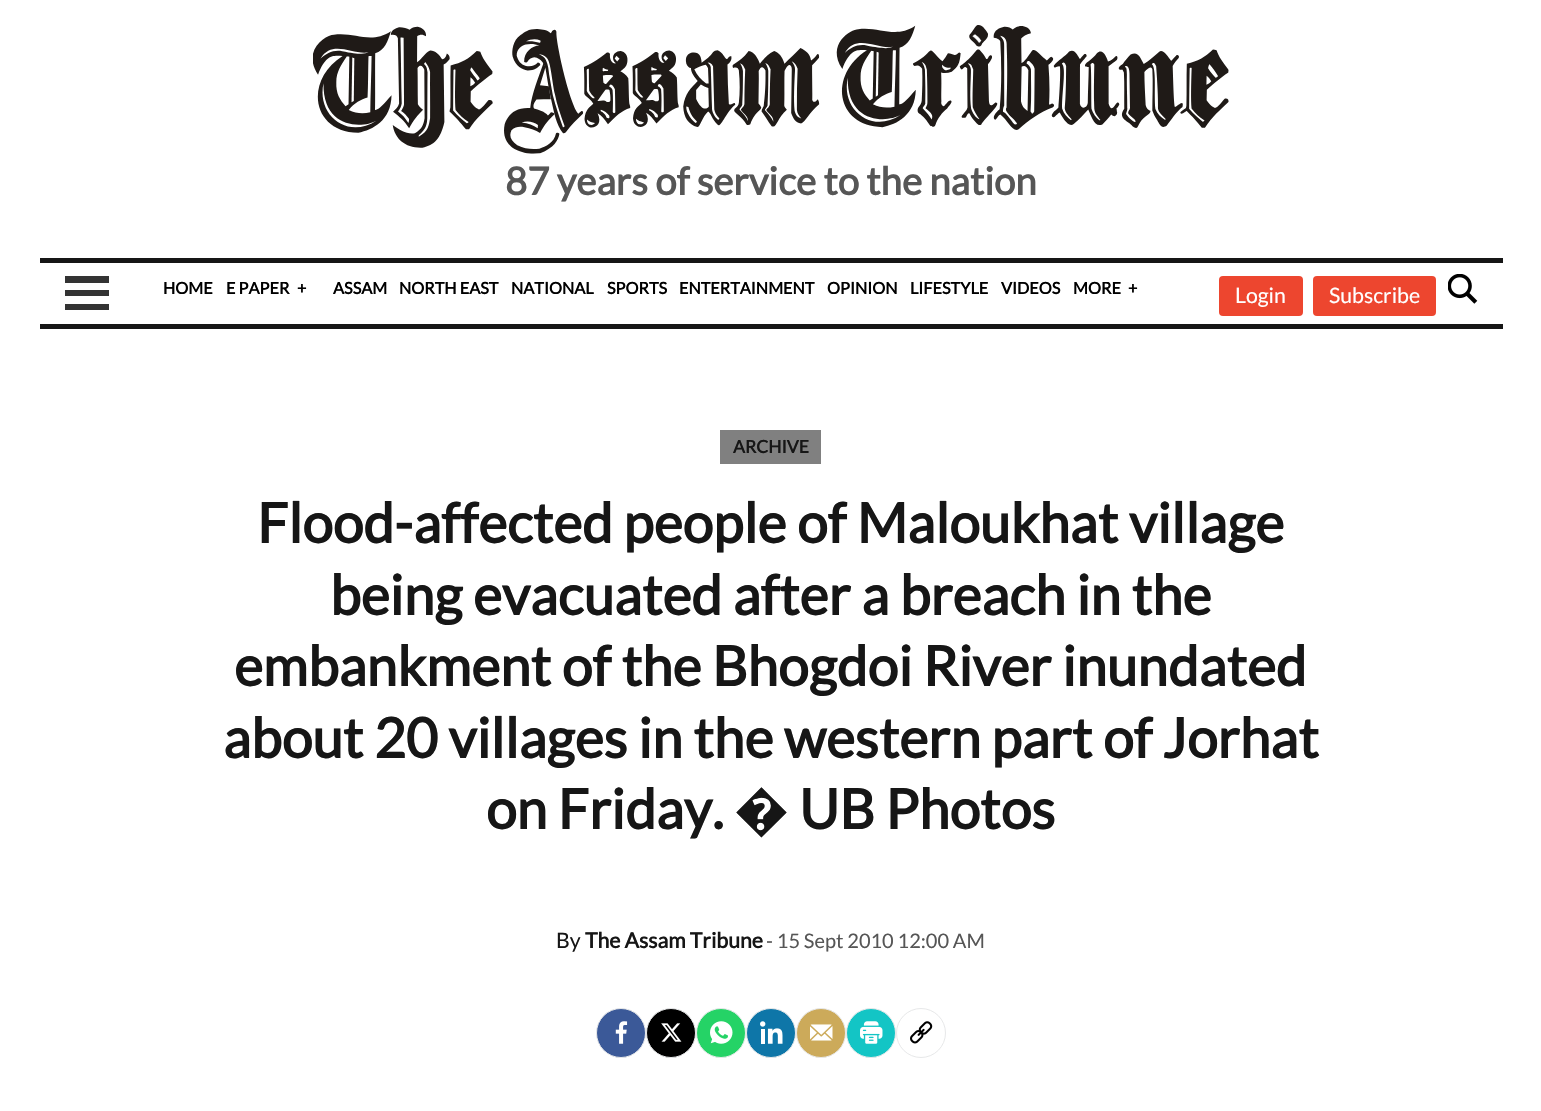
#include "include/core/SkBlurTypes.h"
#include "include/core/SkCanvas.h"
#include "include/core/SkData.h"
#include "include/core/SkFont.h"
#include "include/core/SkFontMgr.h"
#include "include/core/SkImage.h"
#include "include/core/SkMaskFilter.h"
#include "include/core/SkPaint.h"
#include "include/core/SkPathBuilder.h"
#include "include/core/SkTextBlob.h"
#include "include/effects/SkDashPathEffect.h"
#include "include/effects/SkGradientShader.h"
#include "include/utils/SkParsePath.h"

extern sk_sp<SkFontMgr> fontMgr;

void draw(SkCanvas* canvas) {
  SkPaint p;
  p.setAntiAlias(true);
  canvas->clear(SK_ColorWHITE);
  canvas->drawImageRect(SkImages::DeferredFromEncodedData(SkData::MakeFromFileName("images/1.png")), SkRect::MakeLTRB(313, 25, 1229, 154), SkSamplingOptions());
  p.setColor(SkColorSetRGB(22, 22, 22));
  canvas->drawRect(SkRect::MakeLTRB(40, 258, 1503, 263), p);
  canvas->drawRect(SkRect::MakeLTRB(40, 324, 1503, 329), p);
  p.setColor(SkColorSetRGB(51, 51, 51));
  canvas->drawRect(SkRect::MakeLTRB(65, 276, 109, 283), p);
  canvas->drawRect(SkRect::MakeLTRB(65, 290, 109, 296), p);
  canvas->drawRect(SkRect::MakeLTRB(65, 304, 109, 310), p);
  p.setColor(SkColorSetRGB(237, 70, 47));
  canvas->drawRoundRect(SkRect::MakeLTRB(1219, 276, 1303, 316), 4, 4, p);
  canvas->drawRoundRect(SkRect::MakeLTRB(1313, 276, 1436, 316), 4, 4, p);
  canvas->drawImageRect(SkImages::DeferredFromEncodedData(SkData::MakeFromFileName("images/2.png")), SkRect::MakeLTRB(1448, 274, 1478, 304), SkSamplingOptions());
  p.setColor(SkColorSetRGB(128, 128, 128));
  canvas->drawRect(SkRect::MakeLTRB(720, 430, 821, 464), p);
  p.setColor(SkColorSetRGB(59, 89, 152));
  canvas->drawCircle(621, 1033, 24.5f, p);
  p.setStyle(SkPaint::kStroke_Style);
  p.setStrokeWidth(1);
  p.setColor(SkColorSetRGB(231, 232, 233));
  canvas->drawCircle(621, 1033, 24.5f, p);
  canvas->drawImageRect(SkImages::DeferredFromEncodedData(SkData::MakeFromFileName("images/3.png")), SkRect::MakeLTRB(615, 1021, 628, 1044), SkSamplingOptions());
  p.setStyle(SkPaint::kFill_Style);
  p.setColor(SK_ColorBLACK);
  canvas->drawCircle(671, 1033, 24.5f, p);
  p.setStyle(SkPaint::kStroke_Style);
  p.setColor(SkColorSetRGB(231, 232, 233));
  canvas->drawCircle(671, 1033, 24.5f, p);
  canvas->drawImageRect(SkImages::DeferredFromEncodedData(SkData::MakeFromFileName("images/4.png")), SkRect::MakeLTRB(661, 1023, 682, 1042), SkSamplingOptions());
  p.setStyle(SkPaint::kFill_Style);
  p.setColor(SkColorSetRGB(37, 211, 102));
  canvas->drawCircle(721, 1033, 24.5f, p);
  p.setStyle(SkPaint::kStroke_Style);
  p.setColor(SkColorSetRGB(231, 232, 233));
  canvas->drawCircle(721, 1033, 24.5f, p);
  canvas->drawImageRect(SkImages::DeferredFromEncodedData(SkData::MakeFromFileName("images/5.png")), SkRect::MakeLTRB(710, 1021, 733, 1044), SkSamplingOptions());
  p.setStyle(SkPaint::kFill_Style);
  p.setColor(SkColorSetRGB(14, 118, 168));
  canvas->drawCircle(771, 1033, 24.5f, p);
  p.setStyle(SkPaint::kStroke_Style);
  p.setColor(SkColorSetRGB(231, 232, 233));
  canvas->drawCircle(771, 1033, 24.5f, p);
  canvas->drawImageRect(SkImages::DeferredFromEncodedData(SkData::MakeFromFileName("images/6.png")), SkRect::MakeLTRB(760, 1021, 783, 1044), SkSamplingOptions());
  p.setStyle(SkPaint::kFill_Style);
  p.setColor(SkColorSetRGB(204, 170, 90));
  canvas->drawCircle(821, 1033, 24.5f, p);
  p.setStyle(SkPaint::kStroke_Style);
  p.setColor(SkColorSetRGB(231, 232, 233));
  canvas->drawCircle(821, 1033, 24.5f, p);
  canvas->drawImageRect(SkImages::DeferredFromEncodedData(SkData::MakeFromFileName("images/7.png")), SkRect::MakeLTRB(810, 1024, 833, 1041), SkSamplingOptions());
  p.setStyle(SkPaint::kFill_Style);
  p.setColor(SkColorSetRGB(19, 197, 197));
  canvas->drawCircle(871, 1033, 24.5f, p);
  p.setStyle(SkPaint::kStroke_Style);
  p.setColor(SkColorSetRGB(231, 232, 233));
  canvas->drawCircle(871, 1033, 24.5f, p);
  canvas->drawImageRect(SkImages::DeferredFromEncodedData(SkData::MakeFromFileName("images/8.png")), SkRect::MakeLTRB(860, 1021, 883, 1044), SkSamplingOptions());
  canvas->drawCircle(921, 1033, 24.5f, p);
  canvas->drawImageRect(SkImages::DeferredFromEncodedData(SkData::MakeFromFileName("images/9.png")), SkRect::MakeLTRB(910, 1021, 933, 1044), SkSamplingOptions());
  SkFont font1(fontMgr->matchFamilyStyle("Lato", SkFontStyle::Bold()), 38.25f);
  font1.setSubpixel(true);
  p.setStyle(SkPaint::kFill_Style);
  p.setColor(SkColorSetRGB(86, 86, 86));
  canvas->drawString("87 years of service to the nation", 505, 195, font1, p);
  SkFont font2(fontMgr->matchFamilyStyle("Lato", SkFontStyle::Bold()), 16.25f);
  font2.setSubpixel(true);
  p.setColor(SK_ColorBLACK);
  canvas->drawString("HOME", 163, 294, font2, p);
  canvas->drawString("E PAPER", 226, 294, font2, p);
  canvas->drawString("+", 297, 294, font2, p);
  canvas->drawString("ASSAM", 333, 294, font2, p);
  canvas->drawString("NORTH EAST", 399, 294, font2, p);
  canvas->drawString("NATIONAL", 511, 294, font2, p);
  canvas->drawString("SPORTS", 607, 294, font2, p);
  canvas->drawString("ENTERTAINMENT", 679, 294, font2, p);
  canvas->drawString("OPINION", 827, 294, font2, p);
  canvas->drawString("LIFESTYLE", 910, 294, font2, p);
  canvas->drawString("VIDEOS", 1001, 294, font2, p);
  canvas->drawString("MORE", 1073, 294, font2, p);
  canvas->drawString("+", 1128, 294, font2, p);
  SkFont font3(fontMgr->matchFamilyStyle("Lato", SkFontStyle::Normal()), 21.25f);
  font3.setSubpixel(true);
  p.setColor(SK_ColorWHITE);
  canvas->drawString("Login", 1235, 303, font3, p);
  canvas->drawString("Subscribe", 1329, 303, font3, p);
  SkFont font4(fontMgr->matchFamilyStyle("Lato", SkFontStyle::Bold()), 17.5f);
  font4.setSubpixel(true);
  p.setColor(SkColorSetRGB(22, 22, 22));
  canvas->drawString("ARCHIVE", 733, 453, font4, p);
  SkFont font5(fontMgr->matchFamilyStyle("Lato", SkFontStyle::Bold()), 55);
  font5.setSubpixel(true);
  canvas->drawString("Flood-affected people of Maloukhat village", 257, 543, font5, p);
  canvas->drawString("being evacuated after a breach in the", 330, 615, font5, p);
  canvas->drawString("embankment of the Bhogdoi River inundated", 234, 686, font5, p);
  canvas->drawString("about 20 villages in the western part of Jorhat", 223, 758, font5, p);
  canvas->drawString("on Friday.", 486, 829, font5, p);
  SkFont font6(fontMgr->matchFamilyStyle("Noto Sans", SkFontStyle(600, SkFontStyle::kNormal_Width, SkFontStyle::kUpright_Slant)), 55);
  font6.setSubpixel(true);
  canvas->drawString("�", 734, 829, font6, p);
  canvas->drawString("UB Photos", 799, 829, font5, p);
  canvas->drawString("By", 556, 948, font3, p);
  SkFont font7(fontMgr->matchFamilyStyle("Lato", SkFontStyle::Bold()), 21.25f);
  font7.setSubpixel(true);
  canvas->drawString("The Assam Tribune", 585, 948, font7, p);
  SkFont font8(fontMgr->matchFamilyStyle("Lato", SkFontStyle::Normal()), 20);
  font8.setSubpixel(true);
  p.setColor(SkColorSetRGB(86, 86, 86));
  canvas->drawString("- 15 Sept 2010 12:00 AM", 766, 948, font8, p);
}
